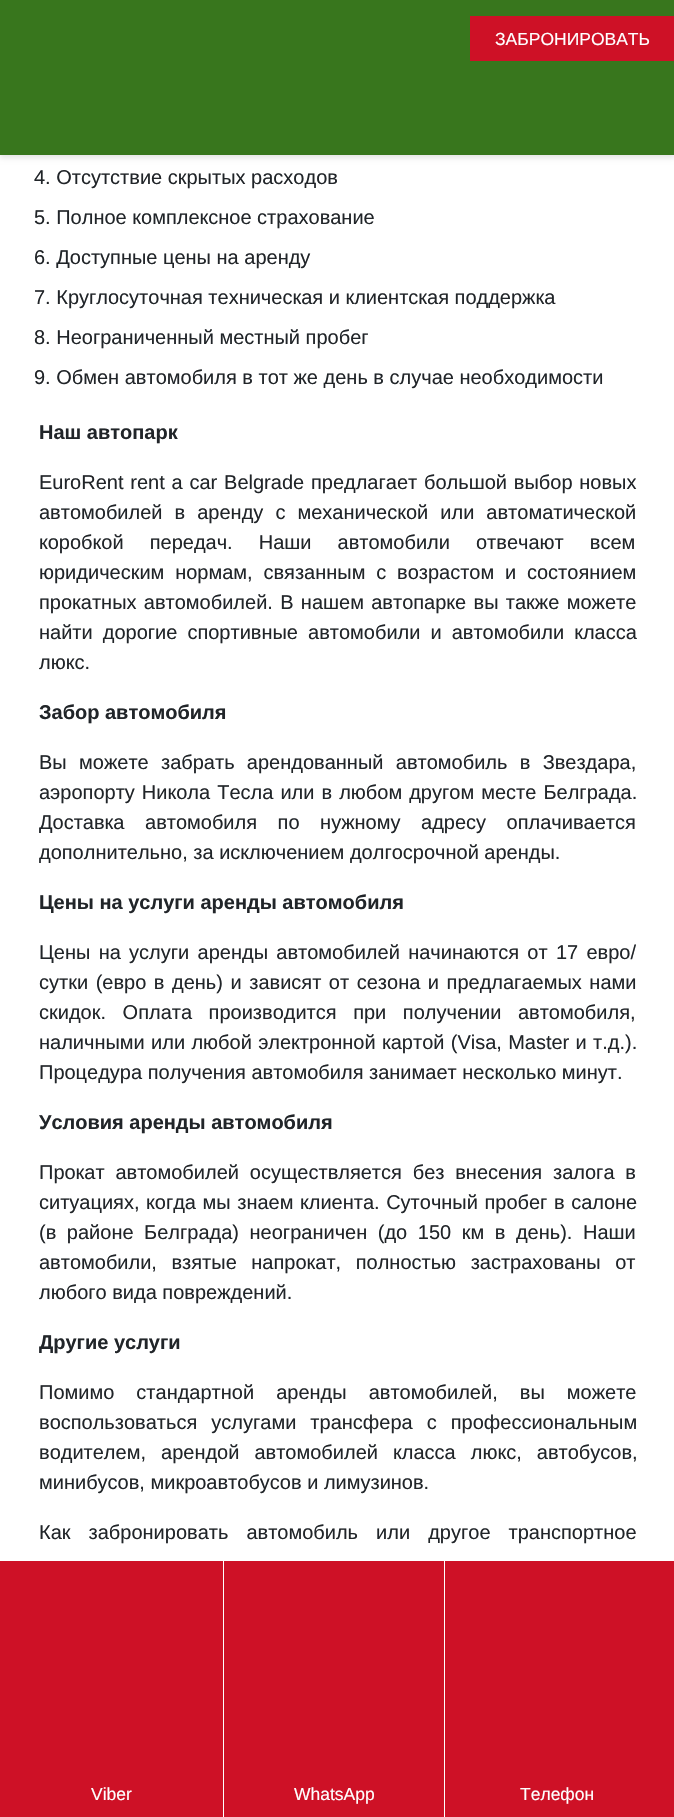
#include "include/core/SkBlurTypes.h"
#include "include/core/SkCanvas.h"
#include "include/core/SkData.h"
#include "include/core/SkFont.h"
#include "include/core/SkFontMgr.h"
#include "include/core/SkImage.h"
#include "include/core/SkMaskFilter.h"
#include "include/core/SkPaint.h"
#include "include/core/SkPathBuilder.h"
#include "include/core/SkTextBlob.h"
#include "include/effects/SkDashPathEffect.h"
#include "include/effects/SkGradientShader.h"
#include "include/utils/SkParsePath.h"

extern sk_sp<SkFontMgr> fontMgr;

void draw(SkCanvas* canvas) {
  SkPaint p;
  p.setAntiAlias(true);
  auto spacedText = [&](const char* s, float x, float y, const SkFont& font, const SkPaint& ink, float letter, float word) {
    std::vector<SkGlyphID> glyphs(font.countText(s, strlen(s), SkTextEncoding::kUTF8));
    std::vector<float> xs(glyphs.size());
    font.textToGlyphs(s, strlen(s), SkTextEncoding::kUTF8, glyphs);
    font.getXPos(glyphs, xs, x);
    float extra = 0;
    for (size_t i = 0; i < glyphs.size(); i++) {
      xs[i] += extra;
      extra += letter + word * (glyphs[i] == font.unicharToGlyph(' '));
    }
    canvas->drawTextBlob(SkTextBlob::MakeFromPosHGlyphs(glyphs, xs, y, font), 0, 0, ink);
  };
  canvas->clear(SK_ColorWHITE);
  p.setColor(SkColorSetARGB(26, 0, 0, 0));
  p.setMaskFilter(SkMaskFilter::MakeBlur(kNormal_SkBlurStyle, 2.5f));
  canvas->drawRect(SkRect::MakeLTRB(0, 3, 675, 158), p);
  p.setMaskFilter(nullptr);
  p.setColor(SkColorSetRGB(56, 118, 29));
  canvas->drawRect(SkRect::MakeLTRB(0, 0, 674, 155), p);
  p.setColor(SkColorSetRGB(206, 17, 38));
  canvas->drawRect(SkRect::MakeLTRB(470, 16, 674, 61), p);
  canvas->drawRect(SkRect::MakeLTRB(0, 1561, 674, 1817), p);
  p.setColor(SK_ColorWHITE);
  canvas->drawRect(SkRect::MakeLTRB(444, 1561, 445, 1817), p);
  canvas->drawRect(SkRect::MakeLTRB(223, 1561, 224, 1817), p);
  SkFont font1(fontMgr->matchFamilyStyle("Liberation Sans", SkFontStyle::Normal()), 17.5f);
  font1.setSubpixel(true);
  canvas->drawString("ЗАБРОНИРОВАТЬ", 495, 45, font1, p);
  SkFont font2(fontMgr->matchFamilyStyle("Liberation Sans", SkFontStyle::Normal()), 20);
  font2.setSubpixel(true);
  p.setColor(SkColorSetRGB(33, 37, 41));
  canvas->drawString("4. Отсутствие скрытых расходов", 34, 184, font2, p);
  canvas->drawString("5. Полное комплексное страхование", 34, 224, font2, p);
  canvas->drawString("6. Доступные цены на аренду", 34, 264, font2, p);
  canvas->drawString("7. Круглосуточная техническая и клиентская поддержка", 34, 304, font2, p);
  canvas->drawString("8. Неограниченный местный пробег", 34, 344, font2, p);
  canvas->drawString("9. Обмен автомобиля в тот же день в случае необходимости", 34, 384, font2, p);
  SkFont font3(fontMgr->matchFamilyStyle("Liberation Sans", SkFontStyle::Bold()), 20);
  font3.setSubpixel(true);
  canvas->drawString("Наш автопарк", 39, 439, font3, p);
  spacedText("EuroRent rent a car Belgrade предлагает большой выбор новых", 39, 489, font2, p, 0, 1.25f);
  spacedText("автомобилей в аренду с механической или автоматической", 39, 519, font2, p, 0, 6.5f);
  spacedText("коробкой передач. Наши автомобили отвечают всем", 39, 549, font2, p, 0, 20.5f);
  spacedText("юридическим нормам, связанным с возрастом и состоянием", 39, 579, font2, p, 0, 5.25f);
  spacedText("прокатных автомобилей. В нашем автопарке вы также можете", 39, 609, font2, p, 0, 1.75f);
  spacedText("найти дорогие спортивные автомобили и автомобили класса", 39, 639, font2, p, 0, 4.5f);
  canvas->drawString("люкс.", 39, 669, font2, p);
  canvas->drawString("Забор автомобиля", 39, 719, font3, p);
  spacedText("Вы можете забрать арендованный автомобиль в Звездара,", 39, 769, font2, p, 0, 6.75f);
  spacedText("аэропорту Никола Тесла или в любом другом месте Белграда.", 39, 799, font2, p, 0, 1.5f);
  spacedText("Доставка автомобиля по нужному адресу оплачивается", 39, 829, font2, p, 0, 15);
  canvas->drawString("дополнительно, за исключением долгосрочной аренды.", 39, 859, font2, p);
  canvas->drawString("Цены на услуги аренды автомобиля", 39, 909, font3, p);
  spacedText("Цены на услуги аренды автомобилей начинаются от 17 евро/", 39, 959, font2, p, 0, 2.75f);
  spacedText("сутки (евро в день) и зависят от сезона и предлагаемых нами", 39, 989, font2, p, 0, 2);
  spacedText("скидок. Оплата производится при получении автомобиля,", 39, 1019, font2, p, 0, 11);
  spacedText("наличными или любой электронной картой (Visa, Master и т.д.).", 39, 1049, font2, p, 0, 0.75f);
  canvas->drawString("Процедура получения автомобиля занимает несколько минут.", 39, 1079, font2, p);
  canvas->drawString("Условия аренды автомобиля", 39, 1129, font3, p);
  spacedText("Прокат автомобилей осуществляется без внесения залога в", 39, 1179, font2, p, 0, 5.25f);
  spacedText("ситуациях, когда мы знаем клиента. Суточный пробег в салоне", 39, 1209, font2, p, 0, 1);
  spacedText("(в районе Белграда) неограничен (до 150 км в день). Наши", 39, 1239, font2, p, 0, 5);
  spacedText("автомобили, взятые напрокат, полностью застрахованы от", 39, 1269, font2, p, 0, 9);
  canvas->drawString("любого вида повреждений.", 39, 1299, font2, p);
  canvas->drawString("Другие услуги", 39, 1349, font3, p);
  spacedText("Помимо стандартной аренды автомобилей, вы можете", 39, 1399, font2, p, 0, 16.5f);
  spacedText("воспользоваться услугами трансфера с профессиональным", 39, 1429, font2, p, 0, 8.5f);
  spacedText("водителем, арендой автомобилей класса люкс, автобусов,", 39, 1459, font2, p, 0, 9.5f);
  canvas->drawString("минибусов, микроавтобусов и лимузинов.", 39, 1489, font2, p);
  spacedText("Как забронировать автомобиль или другое транспортное", 39, 1539, font2, p, 0, 12.5f);
  p.setColor(SK_ColorWHITE);
  canvas->drawString("Viber", 91, 1800, font1, p);
  canvas->drawString("WhatsApp", 294, 1800, font1, p);
  canvas->drawString("Телефон", 520, 1800, font1, p);
}
